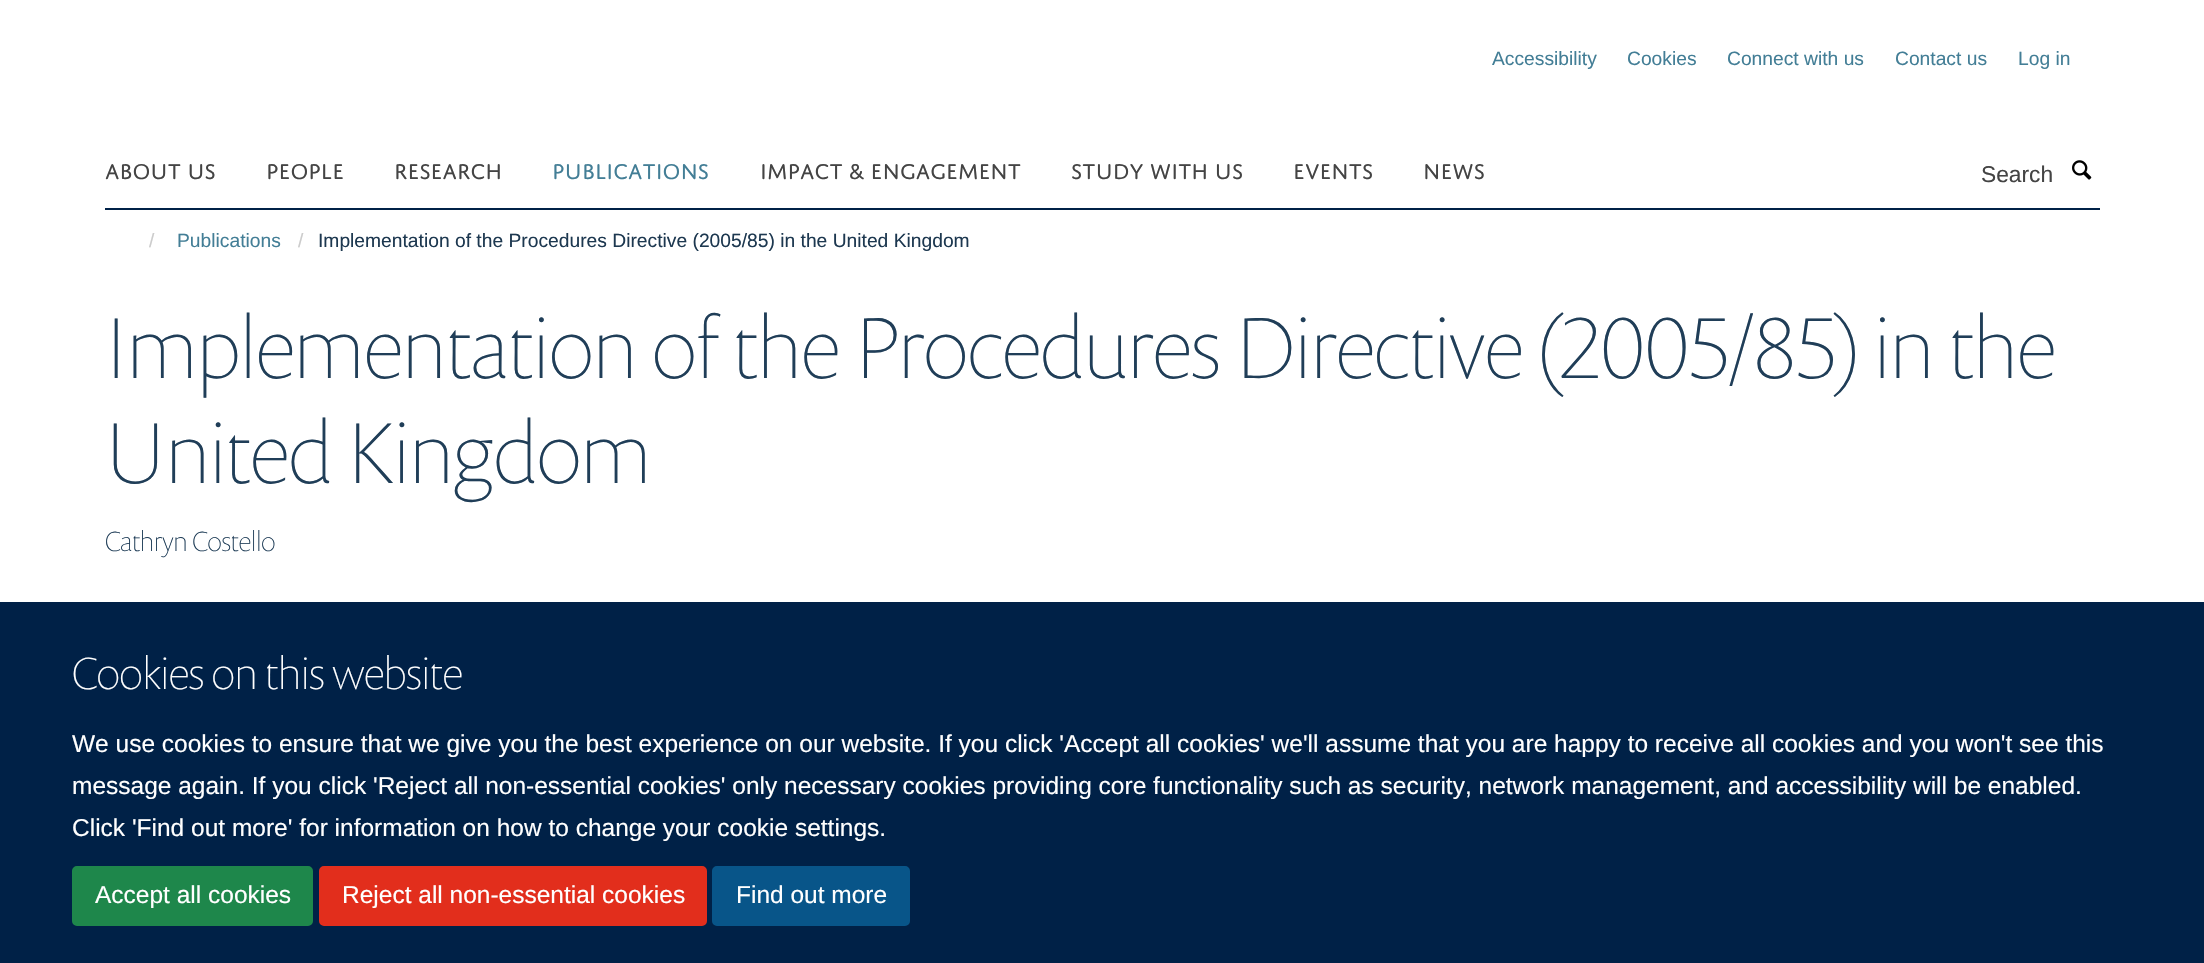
#include "include/core/SkBlurTypes.h"
#include "include/core/SkCanvas.h"
#include "include/core/SkData.h"
#include "include/core/SkFont.h"
#include "include/core/SkFontMgr.h"
#include "include/core/SkImage.h"
#include "include/core/SkMaskFilter.h"
#include "include/core/SkPaint.h"
#include "include/core/SkPathBuilder.h"
#include "include/core/SkTextBlob.h"
#include "include/effects/SkDashPathEffect.h"
#include "include/effects/SkGradientShader.h"
#include "include/utils/SkParsePath.h"

extern sk_sp<SkFontMgr> fontMgr;

void draw(SkCanvas* canvas) {
  SkPaint p;
  p.setAntiAlias(true);
  canvas->clear(SK_ColorWHITE);
  p.setColor(SkColorSetRGB(0, 33, 71));
  canvas->drawRect(SkRect::MakeLTRB(105, 208, 2100, 210), p);
  canvas->drawImageRect(SkImages::DeferredFromEncodedData(SkData::MakeFromFileName("images/1.png")), SkRect::MakeLTRB(2072, 160, 2092, 180), SkSamplingOptions());
  canvas->drawRect(SkRect::MakeLTRB(0, 602, 2204, 963), p);
  p.setColor(SkColorSetRGB(30, 135, 75));
  canvas->drawRoundRect(SkRect::MakeLTRB(73, 867, 312, 925), 4, 4, p);
  p.setStyle(SkPaint::kStroke_Style);
  p.setStrokeWidth(2);
  canvas->drawRoundRect(SkRect::MakeLTRB(73, 867, 312, 925), 4, 4, p);
  p.setStyle(SkPaint::kFill_Style);
  p.setColor(SkColorSetRGB(226, 46, 28));
  canvas->drawRoundRect(SkRect::MakeLTRB(320, 867, 706, 925), 4, 4, p);
  p.setStyle(SkPaint::kStroke_Style);
  canvas->drawRoundRect(SkRect::MakeLTRB(320, 867, 706, 925), 4, 4, p);
  p.setStyle(SkPaint::kFill_Style);
  p.setColor(SkColorSetRGB(8, 85, 137));
  canvas->drawRoundRect(SkRect::MakeLTRB(713, 867, 909, 925), 4, 4, p);
  p.setStyle(SkPaint::kStroke_Style);
  canvas->drawRoundRect(SkRect::MakeLTRB(713, 867, 909, 925), 4, 4, p);
  SkFont font1(fontMgr->matchFamilyStyle("Liberation Sans", SkFontStyle::Normal()), 19.25f);
  font1.setSubpixel(true);
  p.setStyle(SkPaint::kFill_Style);
  p.setColor(SkColorSetRGB(67, 126, 150));
  canvas->drawString("Accessibility", 1492, 65, font1, p);
  canvas->drawString("Cookies", 1627, 65, font1, p);
  canvas->drawString("Connect with us", 1727, 65, font1, p);
  canvas->drawString("Contact us", 1895, 65, font1, p);
  canvas->drawString("Log in", 2018, 65, font1, p);
  SkFont font2(fontMgr->matchFamilyStyle("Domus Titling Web", SkFontStyle::Normal()), 22.75f);
  font2.setSubpixel(true);
  p.setColor(SkColorSetRGB(68, 68, 68));
  canvas->drawString("ABOUT US", 105, 179, font2, p);
  canvas->drawString("PEOPLE", 266, 179, font2, p);
  canvas->drawString("RESEARCH", 394, 179, font2, p);
  p.setColor(SkColorSetRGB(67, 126, 150));
  canvas->drawString("PUBLICATIONS", 552, 179, font2, p);
  p.setColor(SkColorSetRGB(68, 68, 68));
  canvas->drawString("IMPACT & ENGAGEMENT", 760, 179, font2, p);
  canvas->drawString("STUDY WITH US", 1071, 179, font2, p);
  canvas->drawString("EVENTS", 1293, 179, font2, p);
  canvas->drawString("NEWS", 1423, 179, font2, p);
  SkFont font3(fontMgr->matchFamilyStyle("Liberation Sans", SkFontStyle::Normal()), 22.75f);
  font3.setSubpixel(true);
  canvas->drawString("Search", 1981, 182, font3, p);
  p.setColor(SkColorSetRGB(204, 204, 204));
  canvas->drawString("/", 149, 247, font1, p);
  p.setColor(SkColorSetRGB(67, 126, 150));
  canvas->drawString("Publications", 177, 247, font1, p);
  p.setColor(SkColorSetRGB(204, 204, 204));
  canvas->drawString("/", 298, 247, font1, p);
  p.setColor(SkColorSetRGB(29, 56, 80));
  canvas->drawString("Implementation of the Procedures Directive (2005/85) in the United Kingdom", 318, 247, font1, p);
  SkFont font4(fontMgr->matchFamilyStyle("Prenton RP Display", SkFontStyle(100, SkFontStyle::kNormal_Width, SkFontStyle::kUpright_Slant)), 87.5f);
  font4.setSubpixel(true);
  p.setColor(SkColorSetRGB(32, 62, 88));
  canvas->drawString("Implementation of the Procedures Directive (2005/85) in the", 105, 378, font4, p);
  canvas->drawString("United Kingdom", 105, 483, font4, p);
  SkFont font5(fontMgr->matchFamilyStyle("Prenton RP Display", SkFontStyle(100, SkFontStyle::kNormal_Width, SkFontStyle::kUpright_Slant)), 28);
  font5.setSubpixel(true);
  canvas->drawString("Cathryn Costello", 105, 551, font5, p);
  SkFont font6(fontMgr->matchFamilyStyle("Prenton RP Display", SkFontStyle(100, SkFontStyle::kNormal_Width, SkFontStyle::kUpright_Slant)), 45.5f);
  font6.setSubpixel(true);
  p.setColor(SK_ColorWHITE);
  canvas->drawString("Cookies on this website", 72, 689, font6, p);
  SkFont font7(fontMgr->matchFamilyStyle("Liberation Sans", SkFontStyle::Normal()), 24.5f);
  font7.setSubpixel(true);
  canvas->drawString("We use cookies to ensure that we give you the best experience on our website. If you click 'Accept all cookies' we'll assume that you are happy to receive all cookies and you won't see this", 72, 752, font7, p);
  canvas->drawString("message again. If you click 'Reject all non-essential cookies' only necessary cookies providing core functionality such as security, network management, and accessibility will be enabled.", 72, 794, font7, p);
  canvas->drawString("Click 'Find out more' for information on how to change your cookie settings.", 72, 836, font7, p);
  canvas->drawString("Accept all cookies", 95, 903, font7, p);
  canvas->drawString("Reject all non-essential cookies", 342, 903, font7, p);
  canvas->drawString("Find out more", 736, 903, font7, p);
}
